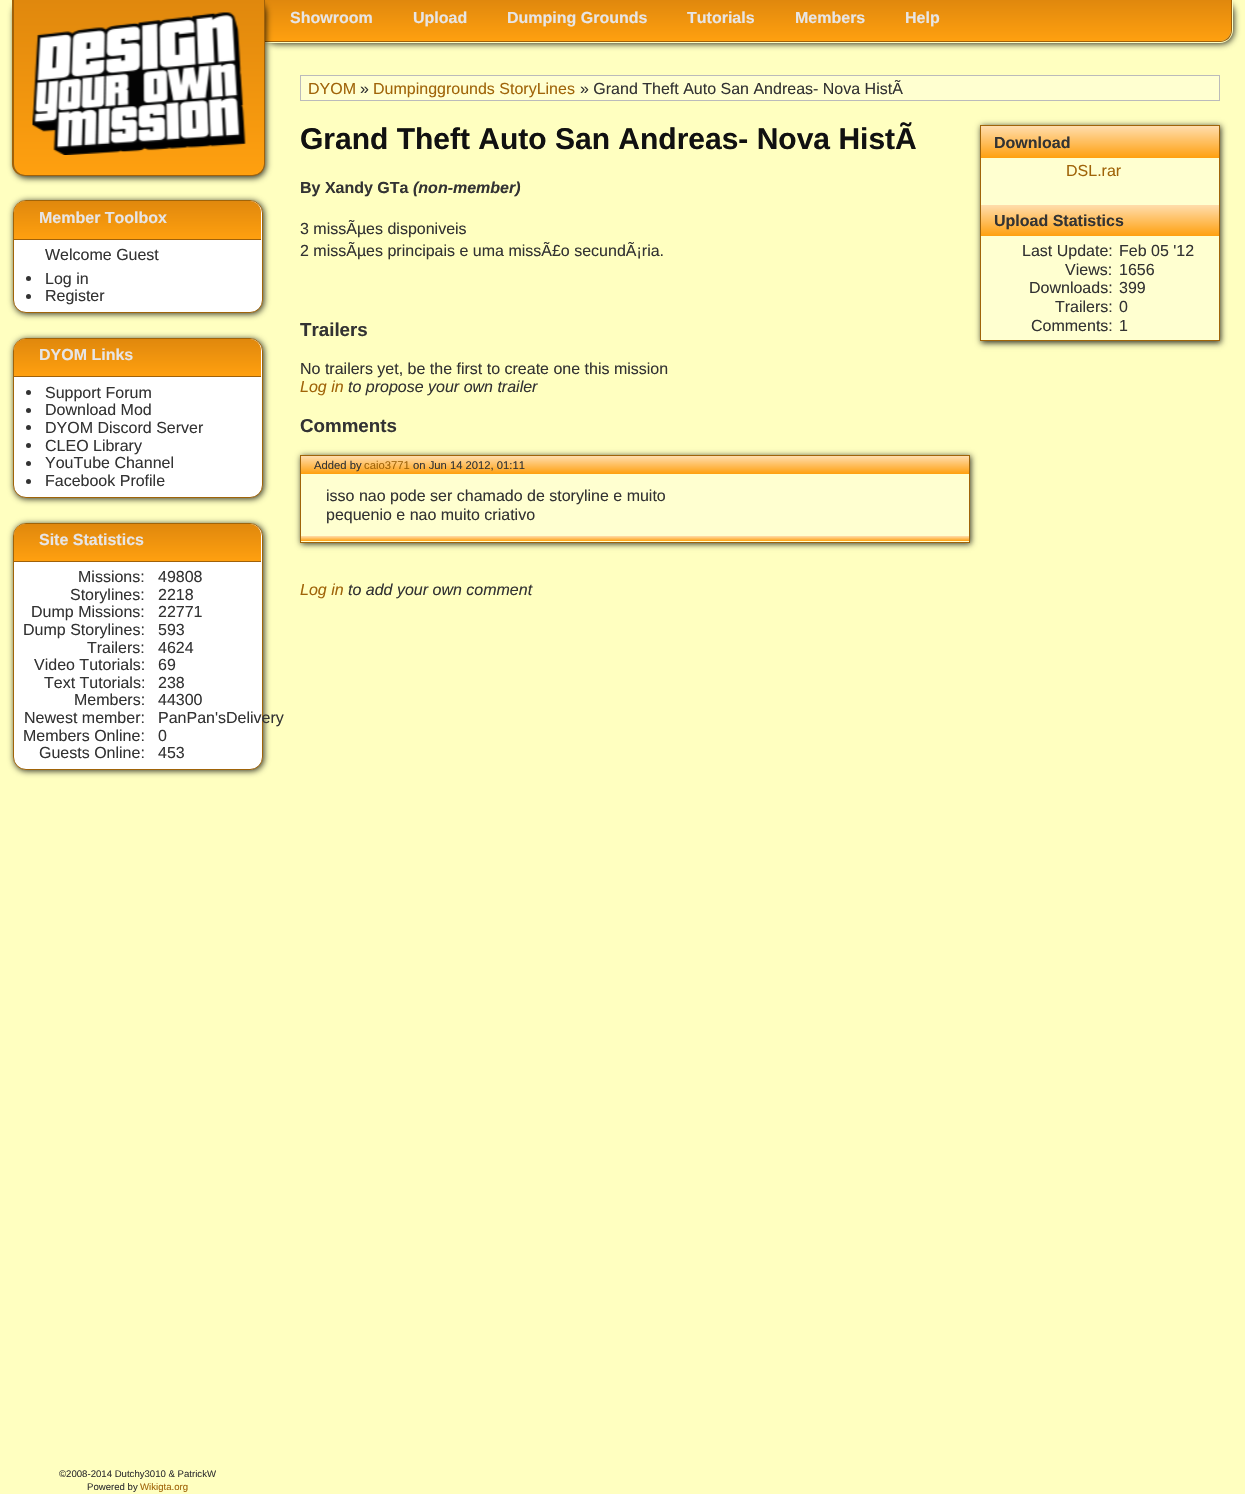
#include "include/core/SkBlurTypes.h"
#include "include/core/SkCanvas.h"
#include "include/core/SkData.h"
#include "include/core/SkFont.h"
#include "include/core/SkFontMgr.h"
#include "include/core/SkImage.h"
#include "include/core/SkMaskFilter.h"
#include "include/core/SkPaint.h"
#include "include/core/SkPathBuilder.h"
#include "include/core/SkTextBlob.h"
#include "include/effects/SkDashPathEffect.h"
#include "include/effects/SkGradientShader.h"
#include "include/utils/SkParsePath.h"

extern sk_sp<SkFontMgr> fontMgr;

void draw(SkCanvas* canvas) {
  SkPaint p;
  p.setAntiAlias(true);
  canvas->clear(SkColorSetRGB(255, 255, 192));
  canvas->save();
  canvas->clipPath(SkPathBuilder(SkPathFillType::kEvenOdd).moveTo(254, 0).lineTo(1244, 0).lineTo(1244, 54).lineTo(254, 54).close().moveTo(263, 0).lineTo(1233, 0).lineTo(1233, 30).cubicTo(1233, 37, 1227, 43, 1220, 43).lineTo(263, 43).close().detach(), true);
  p.setColor(SkColorSetARGB(204, 0, 0, 0));
  p.setMaskFilter(SkMaskFilter::MakeBlur(kNormal_SkBlurStyle, 3));
  canvas->drawRoundRect(SkRect::MakeLTRB(264, 1, 1234, 44), 13, 13, p);
  p.setMaskFilter(nullptr);
  canvas->restore();
  {
    const SkColor colors[] = {SkColorSetRGB(224, 136, 13), SkColorSetRGB(255, 160, 15)};
    const float stops[] = {0, 1};
    const SkPoint ends[] = {{263, 0}, {263, 41}};
    p.setShader(SkGradientShader::MakeLinear(ends, colors, stops, 2, SkTileMode::kClamp));
    p.setAlpha(255);
  }
  canvas->drawPath(SkPathBuilder().moveTo(263, 0).lineTo(1231, 0).lineTo(1231, 30).cubicTo(1231, 36, 1226, 41, 1220, 41).lineTo(263, 41).close().detach(), p);
  p.setShader(nullptr);
  p.setColor(SkColorSetRGB(160, 97, 9));
  canvas->drawPath(SkPathBuilder(SkPathFillType::kEvenOdd).moveTo(262, 0).lineTo(1232, 0).lineTo(1232, 30).cubicTo(1232, 37, 1227, 42, 1220, 42).lineTo(262, 42).close().moveTo(262, 0).lineTo(1231, 0).lineTo(1231, 30).cubicTo(1231, 36, 1226, 41, 1220, 41).lineTo(262, 41).close().detach(), p);
  p.setColor(SkColorSetARGB(204, 0, 0, 0));
  p.setMaskFilter(SkMaskFilter::MakeBlur(kNormal_SkBlurStyle, 3));
  canvas->drawRoundRect(SkRect::MakeLTRB(14, 1, 266, 178), 13, 13, p);
  p.setMaskFilter(nullptr);
  {
    const SkColor colors[] = {SkColorSetRGB(224, 136, 13), SkColorSetRGB(255, 160, 15)};
    const float stops[] = {0, 1};
    const SkPoint ends[] = {{14, 0}, {14, 175}};
    p.setShader(SkGradientShader::MakeLinear(ends, colors, stops, 2, SkTileMode::kClamp));
    p.setAlpha(255);
  }
  canvas->drawPath(SkPathBuilder().moveTo(14, 0).lineTo(264, 0).lineTo(264, 164).cubicTo(264, 170, 259, 175, 253, 175).lineTo(25, 175).cubicTo(19, 175, 14, 170, 14, 164).close().detach(), p);
  p.setShader(nullptr);
  p.setColor(SkColorSetRGB(160, 97, 9));
  canvas->drawPath(SkPathBuilder(SkPathFillType::kEvenOdd).moveTo(12, 0).lineTo(265, 0).lineTo(265, 164).cubicTo(265, 171, 259, 176, 252, 176).lineTo(25, 176).cubicTo(18, 176, 12, 171, 12, 164).close().moveTo(14, 0).lineTo(264, 0).lineTo(264, 164).cubicTo(264, 170, 259, 175, 252, 175).lineTo(25, 175).cubicTo(19, 175, 14, 170, 14, 164).close().detach(), p);
  canvas->drawImageRect(SkImages::DeferredFromEncodedData(SkData::MakeFromFileName("images/1.png")), SkRect::MakeLTRB(32, 12, 246, 155), SkSamplingOptions());
  p.setColor(SkColorSetARGB(204, 0, 0, 0));
  p.setMaskFilter(SkMaskFilter::MakeBlur(kNormal_SkBlurStyle, 3));
  canvas->drawRoundRect(SkRect::MakeLTRB(14, 201, 264, 314), 13, 13, p);
  p.setMaskFilter(nullptr);
  p.setColor(SK_ColorWHITE);
  canvas->drawRoundRect(SkRect::MakeLTRB(13.5f, 200.5f, 262.5f, 312.5f), 12.5f, 12.5f, p);
  p.setStyle(SkPaint::kStroke_Style);
  p.setStrokeWidth(1);
  p.setColor(SkColorSetRGB(160, 100, 9));
  canvas->drawRoundRect(SkRect::MakeLTRB(13.5f, 200.5f, 262.5f, 312.5f), 12.5f, 12.5f, p);
  p.setStyle(SkPaint::kFill_Style);
  {
    const SkColor colors[] = {SkColorSetRGB(224, 136, 13), SkColorSetRGB(255, 160, 15)};
    const float stops[] = {0, 1};
    const SkPoint ends[] = {{14, 201}, {14, 239}};
    p.setShader(SkGradientShader::MakeLinear(ends, colors, stops, 2, SkTileMode::kClamp));
    p.setAlpha(255);
  }
  canvas->drawPath(SkPathBuilder().moveTo(25, 201).lineTo(250, 201).cubicTo(256, 201, 261, 206, 261, 212).lineTo(261, 239).lineTo(14, 239).lineTo(14, 212).cubicTo(14, 206, 19, 201, 25, 201).close().detach(), p);
  p.setShader(nullptr);
  p.setColor(SkColorSetRGB(160, 97, 9));
  canvas->drawRect(SkRect::MakeLTRB(14, 239, 261, 240), p);
  p.setColor(SkColorSetRGB(51, 51, 51));
  canvas->drawCircle(28.5f, 278.5f, 2.5f, p);
  canvas->drawCircle(28.5f, 296.5f, 2.5f, p);
  p.setColor(SkColorSetARGB(204, 0, 0, 0));
  p.setMaskFilter(SkMaskFilter::MakeBlur(kNormal_SkBlurStyle, 3));
  canvas->drawRoundRect(SkRect::MakeLTRB(14, 339, 264, 499), 13, 13, p);
  p.setMaskFilter(nullptr);
  p.setColor(SK_ColorWHITE);
  canvas->drawRoundRect(SkRect::MakeLTRB(13.5f, 338.5f, 262.5f, 497.5f), 12.5f, 12.5f, p);
  p.setStyle(SkPaint::kStroke_Style);
  p.setColor(SkColorSetRGB(160, 100, 9));
  canvas->drawRoundRect(SkRect::MakeLTRB(13.5f, 338.5f, 262.5f, 497.5f), 12.5f, 12.5f, p);
  p.setStyle(SkPaint::kFill_Style);
  {
    const SkColor colors[] = {SkColorSetRGB(224, 136, 13), SkColorSetRGB(255, 160, 15)};
    const float stops[] = {0, 1};
    const SkPoint ends[] = {{14, 339}, {14, 376}};
    p.setShader(SkGradientShader::MakeLinear(ends, colors, stops, 2, SkTileMode::kClamp));
    p.setAlpha(255);
  }
  canvas->drawPath(SkPathBuilder().moveTo(25, 339).lineTo(250, 339).cubicTo(256, 339, 261, 344, 261, 350).lineTo(261, 376).lineTo(14, 376).lineTo(14, 350).cubicTo(14, 344, 19, 339, 25, 339).close().detach(), p);
  p.setShader(nullptr);
  p.setColor(SkColorSetRGB(160, 97, 9));
  canvas->drawRect(SkRect::MakeLTRB(14, 376, 261, 377), p);
  p.setColor(SkColorSetRGB(51, 51, 51));
  canvas->drawCircle(28.5f, 392.5f, 2.5f, p);
  canvas->drawCircle(28.5f, 410.5f, 2.5f, p);
  canvas->drawCircle(28.5f, 427.5f, 2.5f, p);
  canvas->drawCircle(28.5f, 445.5f, 2.5f, p);
  canvas->drawCircle(28.5f, 463.5f, 2.5f, p);
  canvas->drawCircle(28.5f, 481.5f, 2.5f, p);
  p.setColor(SkColorSetARGB(204, 0, 0, 0));
  p.setMaskFilter(SkMaskFilter::MakeBlur(kNormal_SkBlurStyle, 3));
  canvas->drawRoundRect(SkRect::MakeLTRB(14, 524, 264, 771), 13, 13, p);
  p.setMaskFilter(nullptr);
  p.setColor(SK_ColorWHITE);
  canvas->drawRoundRect(SkRect::MakeLTRB(13.5f, 523.5f, 262.5f, 769.5f), 12.5f, 12.5f, p);
  p.setStyle(SkPaint::kStroke_Style);
  p.setColor(SkColorSetRGB(160, 100, 9));
  canvas->drawRoundRect(SkRect::MakeLTRB(13.5f, 523.5f, 262.5f, 769.5f), 12.5f, 12.5f, p);
  p.setStyle(SkPaint::kFill_Style);
  {
    const SkColor colors[] = {SkColorSetRGB(224, 136, 13), SkColorSetRGB(255, 160, 15)};
    const float stops[] = {0, 1};
    const SkPoint ends[] = {{14, 524}, {14, 561}};
    p.setShader(SkGradientShader::MakeLinear(ends, colors, stops, 2, SkTileMode::kClamp));
    p.setAlpha(255);
  }
  canvas->drawPath(SkPathBuilder().moveTo(25, 524).lineTo(250, 524).cubicTo(256, 524, 261, 529, 261, 535).lineTo(261, 561).lineTo(14, 561).lineTo(14, 535).cubicTo(14, 529, 19, 524, 25, 524).close().detach(), p);
  p.setShader(nullptr);
  p.setColor(SkColorSetRGB(160, 97, 9));
  canvas->drawRect(SkRect::MakeLTRB(14, 561, 261, 562), p);
  p.setColor(SkColorSetRGB(255, 255, 208));
  canvas->drawRect(SkRect::MakeLTRB(300.5f, 75.5f, 1219.5f, 100.5f), p);
  p.setStyle(SkPaint::kStroke_Style);
  p.setColor(SkColorSetRGB(187, 187, 187));
  canvas->drawRect(SkRect::MakeLTRB(300.5f, 75.5f, 1219.5f, 100.5f), p);
  p.setStyle(SkPaint::kFill_Style);
  p.setColor(SkColorSetARGB(204, 0, 0, 0));
  p.setMaskFilter(SkMaskFilter::MakeBlur(kNormal_SkBlurStyle, 3));
  canvas->drawRect(SkRect::MakeLTRB(981, 126, 1221, 343), p);
  p.setMaskFilter(nullptr);
  p.setColor(SkColorSetRGB(255, 255, 208));
  canvas->drawRect(SkRect::MakeLTRB(981, 158, 1219, 340), p);
  p.setStyle(SkPaint::kStroke_Style);
  p.setColor(SkColorSetRGB(160, 100, 9));
  canvas->drawRect(SkRect::MakeLTRB(980.5f, 125.5f, 1219.5f, 340.5f), p);
  p.setStyle(SkPaint::kFill_Style);
  {
    const SkColor colors[] = {SkColorSetRGB(255, 221, 173), SkColorSetRGB(255, 160, 15)};
    const float stops[] = {0, 1};
    const SkPoint ends[] = {{981, 126}, {981, 158}};
    p.setShader(SkGradientShader::MakeLinear(ends, colors, stops, 2, SkTileMode::kClamp));
    p.setAlpha(255);
  }
  canvas->drawRect(SkRect::MakeLTRB(981, 126, 1219, 158), p);
  {
    const SkColor colors[] = {SkColorSetRGB(255, 221, 173), SkColorSetRGB(255, 160, 15)};
    const float stops[] = {0, 1};
    const SkPoint ends[] = {{981, 205}, {981, 236}};
    p.setShader(SkGradientShader::MakeLinear(ends, colors, stops, 2, SkTileMode::kClamp));
    p.setAlpha(255);
  }
  canvas->drawRect(SkRect::MakeLTRB(981, 205, 1219, 236), p);
  p.setShader(nullptr);
  p.setColor(SkColorSetARGB(204, 0, 0, 0));
  p.setMaskFilter(SkMaskFilter::MakeBlur(kNormal_SkBlurStyle, 3));
  canvas->drawRect(SkRect::MakeLTRB(301, 456, 971, 544), p);
  p.setMaskFilter(nullptr);
  p.setColor(SkColorSetRGB(255, 255, 208));
  canvas->drawRect(SkRect::MakeLTRB(301, 474, 969, 542), p);
  p.setStyle(SkPaint::kStroke_Style);
  p.setColor(SkColorSetRGB(160, 100, 9));
  canvas->drawRect(SkRect::MakeLTRB(300.5f, 455.5f, 969.5f, 542.5f), p);
  p.setStyle(SkPaint::kFill_Style);
  {
    const SkColor colors[] = {SkColorSetRGB(255, 221, 173), SkColorSetRGB(255, 160, 15)};
    const float stops[] = {0, 1};
    const SkPoint ends[] = {{301, 456}, {301, 474}};
    p.setShader(SkGradientShader::MakeLinear(ends, colors, stops, 2, SkTileMode::kClamp));
    p.setAlpha(255);
  }
  canvas->drawRect(SkRect::MakeLTRB(301, 456, 969, 474), p);
  {
    const SkColor colors[] = {SkColorSetRGB(255, 221, 173), SkColorSetRGB(255, 160, 15)};
    const float stops[] = {0, 1};
    const SkPoint ends[] = {{301, 536}, {301, 541}};
    p.setShader(SkGradientShader::MakeLinear(ends, colors, stops, 2, SkTileMode::kClamp));
    p.setAlpha(255);
  }
  canvas->drawRect(SkRect::MakeLTRB(301, 536, 969, 541), p);
  SkFont font1(fontMgr->matchFamilyStyle("Liberation Sans", SkFontStyle::Bold()), 16);
  font1.setSubpixel(true);
  p.setShader(nullptr);
  p.setColor(SkColorSetRGB(231, 229, 229));
  canvas->drawString("Showroom", 290, 23, font1, p);
  canvas->drawString("Upload", 413, 23, font1, p);
  canvas->drawString("Dumping Grounds", 507, 23, font1, p);
  canvas->drawString("Tutorials", 687, 23, font1, p);
  canvas->drawString("Members", 795, 23, font1, p);
  canvas->drawString("Help", 905, 23, font1, p);
  canvas->drawString("Member Toolbox", 39, 223, font1, p);
  SkFont font2(fontMgr->matchFamilyStyle("Liberation Sans", SkFontStyle::Normal()), 16);
  font2.setSubpixel(true);
  p.setColor(SkColorSetRGB(51, 51, 51));
  canvas->drawString("Welcome Guest", 45, 260, font2, p);
  canvas->drawString("Log in", 45, 284, font2, p);
  canvas->drawString("Register", 45, 301, font2, p);
  p.setColor(SkColorSetRGB(231, 229, 229));
  canvas->drawString("DYOM Links", 39, 360, font1, p);
  p.setColor(SkColorSetRGB(51, 51, 51));
  canvas->drawString("Support Forum", 45, 398, font2, p);
  canvas->drawString("Download Mod", 45, 415, font2, p);
  canvas->drawString("DYOM Discord Server", 45, 433, font2, p);
  canvas->drawString("CLEO Library", 45, 451, font2, p);
  canvas->drawString("YouTube Channel", 45, 468, font2, p);
  canvas->drawString("Facebook Profile", 45, 486, font2, p);
  p.setColor(SkColorSetRGB(231, 229, 229));
  canvas->drawString("Site Statistics", 39, 545, font1, p);
  p.setColor(SkColorSetRGB(51, 51, 51));
  canvas->drawString("Missions:", 78, 582, font2, p);
  canvas->drawString("49808", 158, 582, font2, p);
  canvas->drawString("Storylines:", 70, 600, font2, p);
  canvas->drawString("2218", 158, 600, font2, p);
  canvas->drawString("Dump Missions:", 31, 617, font2, p);
  canvas->drawString("22771", 158, 617, font2, p);
  canvas->drawString("Dump Storylines:", 23, 635, font2, p);
  canvas->drawString("593", 158, 635, font2, p);
  canvas->drawString("Trailers:", 87, 653, font2, p);
  canvas->drawString("4624", 158, 653, font2, p);
  canvas->drawString("Video Tutorials:", 34, 670, font2, p);
  canvas->drawString("69", 158, 670, font2, p);
  canvas->drawString("Text Tutorials:", 44, 688, font2, p);
  canvas->drawString("238", 158, 688, font2, p);
  canvas->drawString("Members:", 74, 705, font2, p);
  canvas->drawString("44300", 158, 705, font2, p);
  canvas->drawString("Newest member:", 24, 723, font2, p);
  canvas->drawString("PanPan'sDelivery", 158, 723, font2, p);
  canvas->drawString("Members Online:", 23, 741, font2, p);
  canvas->drawString("0", 158, 741, font2, p);
  canvas->drawString("Guests Online:", 39, 758, font2, p);
  canvas->drawString("453", 158, 758, font2, p);
  SkFont font3(fontMgr->matchFamilyStyle("Liberation Sans", SkFontStyle::Normal()), 9.6f);
  font3.setSubpixel(true);
  canvas->drawString("©2008-2014 Dutchy3010 & PatrickW", 59, 1477, font3, p);
  canvas->drawString("Powered by", 87, 1490, font3, p);
  p.setColor(SkColorSetRGB(160, 100, 9));
  canvas->drawString("Wikigta.org", 140, 1490, font3, p);
  canvas->drawString("DYOM", 308, 94, font2, p);
  p.setColor(SkColorSetRGB(51, 51, 51));
  canvas->drawString("»", 360, 94, font2, p);
  p.setColor(SkColorSetRGB(160, 100, 9));
  canvas->drawString("Dumpinggrounds StoryLines", 373, 94, font2, p);
  p.setColor(SkColorSetRGB(51, 51, 51));
  canvas->drawString("» Grand Theft Auto San Andreas- Nova HistÃ", 580, 94, font2, p);
  SkFont font4(fontMgr->matchFamilyStyle("Liberation Sans", SkFontStyle::Bold()), 30);
  font4.setSubpixel(true);
  p.setColor(SkColorSetRGB(17, 17, 17));
  canvas->drawString("Grand Theft Auto San Andreas- Nova HistÃ", 300, 149, font4, p);
  p.setColor(SkColorSetRGB(51, 51, 51));
  canvas->drawString("Download", 994, 148, font1, p);
  p.setColor(SkColorSetRGB(160, 100, 9));
  canvas->drawString("DSL.rar", 1066, 176, font2, p);
  p.setColor(SkColorSetRGB(51, 51, 51));
  canvas->drawString("Upload Statistics", 994, 226, font1, p);
  canvas->drawString("Last Update:", 1022, 256, font2, p);
  canvas->drawString("Feb 05 '12", 1119, 256, font2, p);
  canvas->drawString("Views:", 1065, 275, font2, p);
  canvas->drawString("1656", 1119, 275, font2, p);
  canvas->drawString("Downloads:", 1029, 293, font2, p);
  canvas->drawString("399", 1119, 293, font2, p);
  canvas->drawString("Trailers:", 1055, 312, font2, p);
  canvas->drawString("0", 1119, 312, font2, p);
  canvas->drawString("Comments:", 1031, 331, font2, p);
  canvas->drawString("1", 1119, 331, font2, p);
  canvas->drawString("By Xandy GTa", 300, 193, font1, p);
  SkFont font5(fontMgr->matchFamilyStyle("Liberation Sans", SkFontStyle::BoldItalic()), 16);
  font5.setSubpixel(true);
  canvas->drawString("(non-member)", 413, 193, font5, p);
  canvas->drawString("3 missÃµes disponiveis", 300, 234, font2, p);
  canvas->drawString("2 missÃµes principais e uma missÃ£o secundÃ¡ria.", 300, 256, font2, p);
  SkFont font6(fontMgr->matchFamilyStyle("Liberation Sans", SkFontStyle::Bold()), 18.75f);
  font6.setSubpixel(true);
  canvas->drawString("Trailers", 300, 336, font6, p);
  canvas->drawString("No trailers yet, be the first to create one this mission", 300, 374, font2, p);
  SkFont font7(fontMgr->matchFamilyStyle("Liberation Sans", SkFontStyle::Italic()), 16);
  font7.setSubpixel(true);
  p.setColor(SkColorSetRGB(160, 100, 9));
  canvas->drawString("Log in", 300, 392, font7, p);
  p.setColor(SkColorSetRGB(51, 51, 51));
  canvas->drawString("to propose your own trailer", 348, 392, font7, p);
  canvas->drawString("Comments", 300, 432, font6, p);
  SkFont font8(fontMgr->matchFamilyStyle("Liberation Sans", SkFontStyle::Normal()), 11.25f);
  font8.setSubpixel(true);
  canvas->drawString("Added by", 314, 469, font8, p);
  p.setColor(SkColorSetRGB(160, 100, 9));
  canvas->drawString("caio3771", 364, 469, font8, p);
  p.setColor(SkColorSetRGB(51, 51, 51));
  canvas->drawString("on Jun 14 2012, 01:11", 413, 469, font8, p);
  canvas->drawString("isso nao pode ser chamado de storyline e muito", 326, 501, font2, p);
  canvas->drawString("pequenio e nao muito criativo", 326, 520, font2, p);
  p.setColor(SkColorSetRGB(160, 100, 9));
  canvas->drawString("Log in", 300, 595, font7, p);
  p.setColor(SkColorSetRGB(51, 51, 51));
  canvas->drawString("to add your own comment", 348, 595, font7, p);
}
